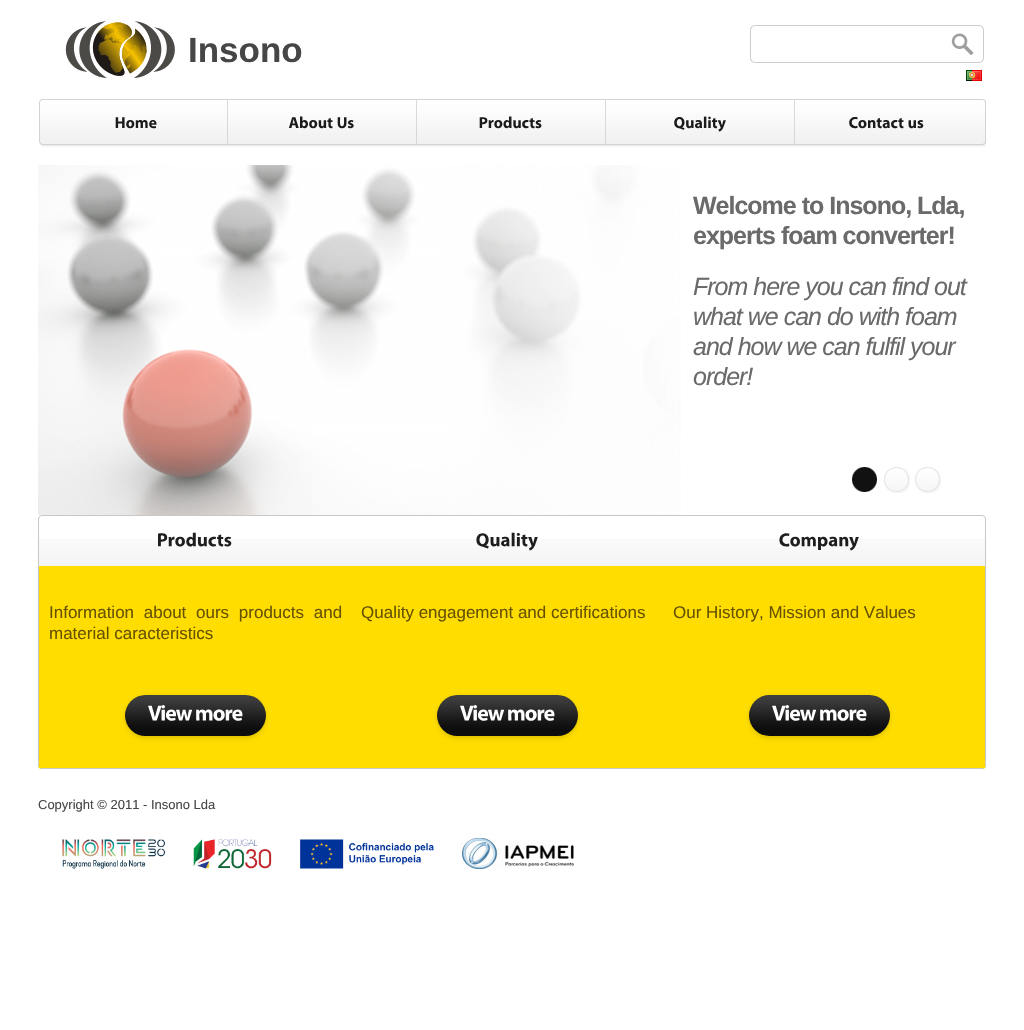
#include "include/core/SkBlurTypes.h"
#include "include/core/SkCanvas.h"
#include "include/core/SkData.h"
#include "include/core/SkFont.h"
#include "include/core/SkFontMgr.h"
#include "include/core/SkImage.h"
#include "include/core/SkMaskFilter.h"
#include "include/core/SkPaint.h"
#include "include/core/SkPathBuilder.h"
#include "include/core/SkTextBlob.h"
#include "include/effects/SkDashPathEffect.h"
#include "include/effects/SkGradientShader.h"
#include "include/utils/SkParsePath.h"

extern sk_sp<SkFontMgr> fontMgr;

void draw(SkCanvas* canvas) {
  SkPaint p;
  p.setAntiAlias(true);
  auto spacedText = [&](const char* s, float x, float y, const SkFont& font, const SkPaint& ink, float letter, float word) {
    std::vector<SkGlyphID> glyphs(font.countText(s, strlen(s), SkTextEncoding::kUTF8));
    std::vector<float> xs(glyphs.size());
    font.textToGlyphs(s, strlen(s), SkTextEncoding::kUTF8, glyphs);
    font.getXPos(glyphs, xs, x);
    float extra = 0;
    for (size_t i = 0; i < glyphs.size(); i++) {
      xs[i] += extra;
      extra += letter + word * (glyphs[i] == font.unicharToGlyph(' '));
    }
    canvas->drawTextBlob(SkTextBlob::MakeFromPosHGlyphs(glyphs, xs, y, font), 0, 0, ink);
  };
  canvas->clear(SK_ColorWHITE);
  canvas->drawImageRect(SkImages::DeferredFromEncodedData(SkData::MakeFromFileName("images/1.png")), SkRect::MakeLTRB(65, 21, 175, 78), SkSamplingOptions());
  canvas->drawImageRect(SkImages::DeferredFromEncodedData(SkData::MakeFromFileName("images/2.png")), SkRect::MakeLTRB(750, 25, 941, 63), SkSamplingOptions());
  canvas->drawImageRect(SkImages::DeferredFromEncodedData(SkData::MakeFromFileName("images/3.png")), SkRect::MakeLTRB(941, 25, 984, 63), SkSamplingOptions());
  canvas->drawImageRect(SkImages::DeferredFromEncodedData(SkData::MakeFromFileName("images/4.png")), SkRect::MakeLTRB(966, 70, 982, 81), SkSamplingOptions());
  canvas->drawImageRect(SkImages::DeferredFromEncodedData(SkData::MakeFromFileName("images/5.png")), SkRect::MakeLTRB(39, 99, 46, 147), SkSamplingOptions());
  canvas->drawImageRect(SkImages::DeferredFromEncodedData(SkData::MakeFromFileName("images/6.png")), SkRect::MakeLTRB(46, 99, 227, 147), SkSamplingOptions());
  canvas->drawImageRect(SkImages::DeferredFromEncodedData(SkData::MakeFromFileName("images/7.png")), SkRect::MakeLTRB(115, 117, 157, 129), SkSamplingOptions());
  canvas->drawImageRect(SkImages::DeferredFromEncodedData(SkData::MakeFromFileName("images/8.png")), SkRect::MakeLTRB(227, 99, 228, 147), SkSamplingOptions());
  canvas->drawImageRect(SkImages::DeferredFromEncodedData(SkData::MakeFromFileName("images/9.png")), SkRect::MakeLTRB(228, 99, 416, 147), SkSamplingOptions());
  canvas->drawImageRect(SkImages::DeferredFromEncodedData(SkData::MakeFromFileName("images/10.png")), SkRect::MakeLTRB(289, 116, 333, 129), SkSamplingOptions());
  canvas->drawImageRect(SkImages::DeferredFromEncodedData(SkData::MakeFromFileName("images/11.png")), SkRect::MakeLTRB(337, 117, 354, 129), SkSamplingOptions());
  canvas->drawImageRect(SkImages::DeferredFromEncodedData(SkData::MakeFromFileName("images/8.png")), SkRect::MakeLTRB(416, 99, 417, 147), SkSamplingOptions());
  canvas->drawImageRect(SkImages::DeferredFromEncodedData(SkData::MakeFromFileName("images/9.png")), SkRect::MakeLTRB(417, 99, 605, 147), SkSamplingOptions());
  canvas->drawImageRect(SkImages::DeferredFromEncodedData(SkData::MakeFromFileName("images/12.png")), SkRect::MakeLTRB(479, 116, 542, 129), SkSamplingOptions());
  canvas->drawImageRect(SkImages::DeferredFromEncodedData(SkData::MakeFromFileName("images/8.png")), SkRect::MakeLTRB(605, 99, 606, 147), SkSamplingOptions());
  canvas->drawImageRect(SkImages::DeferredFromEncodedData(SkData::MakeFromFileName("images/9.png")), SkRect::MakeLTRB(606, 99, 794, 147), SkSamplingOptions());
  canvas->drawImageRect(SkImages::DeferredFromEncodedData(SkData::MakeFromFileName("images/13.png")), SkRect::MakeLTRB(674, 116, 726, 132), SkSamplingOptions());
  canvas->drawImageRect(SkImages::DeferredFromEncodedData(SkData::MakeFromFileName("images/8.png")), SkRect::MakeLTRB(794, 99, 795, 147), SkSamplingOptions());
  canvas->drawImageRect(SkImages::DeferredFromEncodedData(SkData::MakeFromFileName("images/14.png")), SkRect::MakeLTRB(979, 99, 986, 147), SkSamplingOptions());
  canvas->drawImageRect(SkImages::DeferredFromEncodedData(SkData::MakeFromFileName("images/15.png")), SkRect::MakeLTRB(795, 99, 979, 147), SkSamplingOptions());
  canvas->drawImageRect(SkImages::DeferredFromEncodedData(SkData::MakeFromFileName("images/16.png")), SkRect::MakeLTRB(849, 117, 904, 129), SkSamplingOptions());
  canvas->drawImageRect(SkImages::DeferredFromEncodedData(SkData::MakeFromFileName("images/17.png")), SkRect::MakeLTRB(908, 120, 924, 129), SkSamplingOptions());
  canvas->drawImageRect(SkImages::DeferredFromEncodedData(SkData::MakeFromFileName("images/18.png")), SkRect::MakeLTRB(38, 165, 681, 515), SkSamplingOptions());
  canvas->drawImageRect(SkImages::DeferredFromEncodedData(SkData::MakeFromFileName("images/19.png")), SkRect::MakeLTRB(852, 467, 877, 492), SkSamplingOptions());
  canvas->drawImageRect(SkImages::DeferredFromEncodedData(SkData::MakeFromFileName("images/20.png")), SkRect::MakeLTRB(884, 467, 910, 493), SkSamplingOptions());
  canvas->drawImageRect(SkImages::DeferredFromEncodedData(SkData::MakeFromFileName("images/20.png")), SkRect::MakeLTRB(915, 467, 941, 493), SkSamplingOptions());
  canvas->drawImageRect(SkImages::DeferredFromEncodedData(SkData::MakeFromFileName("images/21.png")), SkRect::MakeLTRB(38, 539, 986, 769), SkSamplingOptions());
  p.setStyle(SkPaint::kStroke_Style);
  p.setStrokeWidth(1);
  p.setColor(SkColorSetRGB(200, 200, 200));
  canvas->drawRoundRect(SkRect::MakeLTRB(38.5f, 515.5f, 985.5f, 768.5f), 3.5f, 3.5f, p);
  canvas->drawImageRect(SkImages::DeferredFromEncodedData(SkData::MakeFromFileName("images/22.png")), SkRect::MakeLTRB(158, 532, 232, 547), SkSamplingOptions());
  canvas->drawImageRect(SkImages::DeferredFromEncodedData(SkData::MakeFromFileName("images/23.png")), SkRect::MakeLTRB(476, 532, 538, 551), SkSamplingOptions());
  canvas->drawImageRect(SkImages::DeferredFromEncodedData(SkData::MakeFromFileName("images/24.png")), SkRect::MakeLTRB(779, 533, 859, 551), SkSamplingOptions());
  p.setStyle(SkPaint::kFill_Style);
  p.setColor(SkColorSetRGB(255, 221, 0));
  canvas->drawRect(SkRect::MakeLTRB(39, 566, 985, 768), p);
  p.setColor(SkColorSetRGB(221, 192, 0));
  p.setMaskFilter(SkMaskFilter::MakeBlur(kNormal_SkBlurStyle, 2));
  canvas->drawRoundRect(SkRect::MakeLTRB(125, 697, 266, 738), 20.5f, 20.5f, p);
  p.setMaskFilter(nullptr);
  canvas->drawImageRect(SkImages::DeferredFromEncodedData(SkData::MakeFromFileName("images/25.png")), SkRect::MakeLTRB(125, 695, 266, 736), SkSamplingOptions());
  canvas->drawImageRect(SkImages::DeferredFromEncodedData(SkData::MakeFromFileName("images/26.png")), SkRect::MakeLTRB(148, 705, 193, 721), SkSamplingOptions());
  canvas->drawImageRect(SkImages::DeferredFromEncodedData(SkData::MakeFromFileName("images/27.png")), SkRect::MakeLTRB(196, 709, 243, 721), SkSamplingOptions());
  p.setMaskFilter(SkMaskFilter::MakeBlur(kNormal_SkBlurStyle, 2));
  canvas->drawRoundRect(SkRect::MakeLTRB(437, 697, 578, 738), 20.5f, 20.5f, p);
  p.setMaskFilter(nullptr);
  canvas->drawImageRect(SkImages::DeferredFromEncodedData(SkData::MakeFromFileName("images/28.png")), SkRect::MakeLTRB(437, 695, 578, 736), SkSamplingOptions());
  canvas->drawImageRect(SkImages::DeferredFromEncodedData(SkData::MakeFromFileName("images/26.png")), SkRect::MakeLTRB(460, 705, 505, 721), SkSamplingOptions());
  canvas->drawImageRect(SkImages::DeferredFromEncodedData(SkData::MakeFromFileName("images/27.png")), SkRect::MakeLTRB(508, 709, 555, 721), SkSamplingOptions());
  p.setMaskFilter(SkMaskFilter::MakeBlur(kNormal_SkBlurStyle, 2));
  canvas->drawRoundRect(SkRect::MakeLTRB(749, 697, 890, 738), 20.5f, 20.5f, p);
  p.setMaskFilter(nullptr);
  canvas->drawImageRect(SkImages::DeferredFromEncodedData(SkData::MakeFromFileName("images/29.png")), SkRect::MakeLTRB(749, 695, 890, 736), SkSamplingOptions());
  canvas->drawImageRect(SkImages::DeferredFromEncodedData(SkData::MakeFromFileName("images/26.png")), SkRect::MakeLTRB(772, 705, 817, 721), SkSamplingOptions());
  canvas->drawImageRect(SkImages::DeferredFromEncodedData(SkData::MakeFromFileName("images/27.png")), SkRect::MakeLTRB(820, 709, 867, 721), SkSamplingOptions());
  canvas->drawImageRect(SkImages::DeferredFromEncodedData(SkData::MakeFromFileName("images/30.png")), SkRect::MakeLTRB(62, 839, 434, 869), SkSamplingOptions());
  canvas->drawImageRect(SkImages::DeferredFromEncodedData(SkData::MakeFromFileName("images/31.png")), SkRect::MakeLTRB(462, 838, 575, 869), SkSamplingOptions());
  SkFont font1(fontMgr->matchFamilyStyle("Liberation Sans", SkFontStyle::Bold()), 35);
  font1.setSubpixel(true);
  p.setColor(SkColorSetRGB(70, 70, 70));
  canvas->drawString("Insono", 188, 62, font1, p);
  SkFont font2(fontMgr->matchFamilyStyle("Liberation Sans", SkFontStyle::Bold()), 25);
  font2.setSubpixel(true);
  p.setColor(SkColorSetRGB(106, 106, 106));
  spacedText("Welcome to Insono, Lda,", 693, 214, font2, p, -1, 0);
  spacedText("experts foam converter!", 693, 244, font2, p, -1, 0);
  SkFont font3(fontMgr->matchFamilyStyle("Liberation Sans", SkFontStyle::Italic()), 25);
  font3.setSubpixel(true);
  spacedText("From here you can find out", 693, 295, font3, p, -1, 0);
  spacedText("what we can do with foam", 693, 325, font3, p, -1, 0);
  spacedText("and how we can fulfil your", 693, 355, font3, p, -1, 0);
  spacedText("order!", 693, 385, font3, p, -1, 0);
  SkFont font4(fontMgr->matchFamilyStyle("Liberation Sans", SkFontStyle::Normal()), 17);
  font4.setSubpixel(true);
  p.setColor(SkColorSetRGB(103, 83, 2));
  spacedText("Information about ours products and", 49, 618, font4, p, 0, 5);
  canvas->drawString("material caracteristics", 49, 639, font4, p);
  canvas->drawString("Quality engagement and certifications", 361, 618, font4, p);
  canvas->drawString("Our History, Mission and Values", 673, 618, font4, p);
  SkFont font5(fontMgr->matchFamilyStyle("Liberation Sans", SkFontStyle::Normal()), 13);
  font5.setSubpixel(true);
  p.setColor(SkColorSetRGB(70, 70, 70));
  canvas->drawString("Copyright © 2011 - Insono Lda", 38, 809, font5, p);
}
